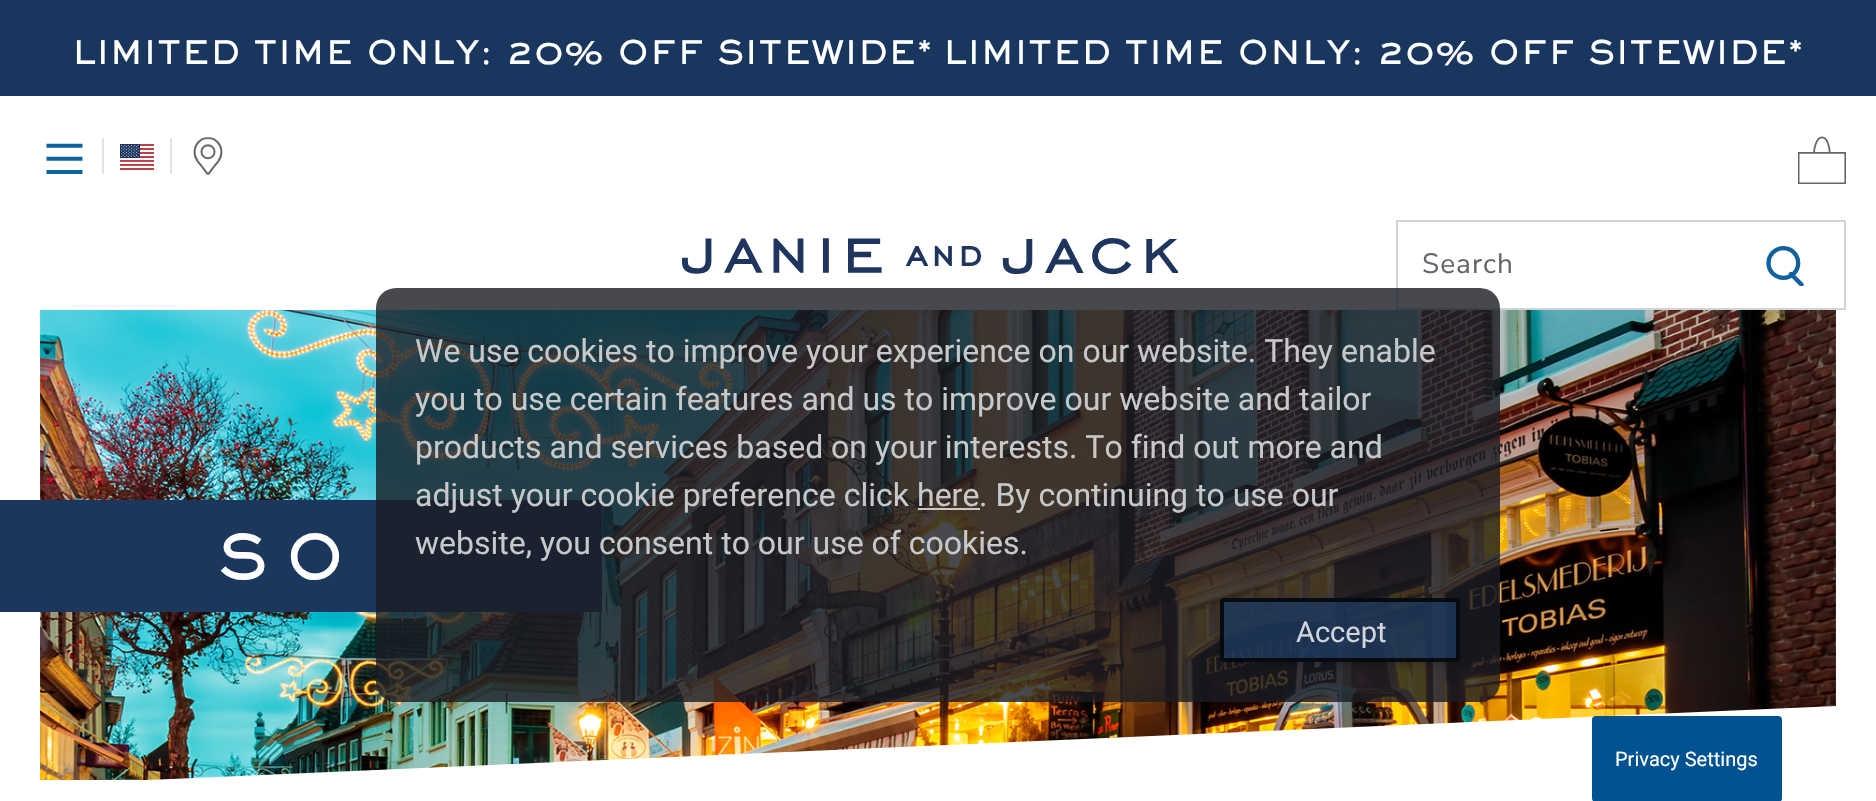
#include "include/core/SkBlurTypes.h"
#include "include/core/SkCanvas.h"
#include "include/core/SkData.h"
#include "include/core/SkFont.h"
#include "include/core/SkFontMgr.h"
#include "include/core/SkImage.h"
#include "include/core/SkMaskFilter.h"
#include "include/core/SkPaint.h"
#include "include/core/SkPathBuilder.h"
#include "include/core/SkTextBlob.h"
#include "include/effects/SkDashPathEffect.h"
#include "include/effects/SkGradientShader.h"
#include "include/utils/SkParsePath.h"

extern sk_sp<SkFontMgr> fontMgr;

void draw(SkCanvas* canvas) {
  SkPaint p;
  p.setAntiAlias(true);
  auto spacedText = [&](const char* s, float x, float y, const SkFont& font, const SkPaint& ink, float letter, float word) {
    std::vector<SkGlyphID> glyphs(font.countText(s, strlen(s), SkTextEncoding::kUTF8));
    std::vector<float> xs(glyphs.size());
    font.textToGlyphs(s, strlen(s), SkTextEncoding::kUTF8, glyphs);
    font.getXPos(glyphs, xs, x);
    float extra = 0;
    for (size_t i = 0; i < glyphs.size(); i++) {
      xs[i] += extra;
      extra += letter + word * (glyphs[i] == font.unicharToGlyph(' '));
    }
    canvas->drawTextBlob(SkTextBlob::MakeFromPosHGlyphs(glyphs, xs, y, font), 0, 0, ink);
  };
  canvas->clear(SK_ColorWHITE);
  p.setColor(SkColorSetRGB(25, 54, 94));
  canvas->drawRect(SkRect::MakeLTRB(0, 0, 1876, 96), p);
  canvas->drawImageRect(SkImages::DeferredFromEncodedData(SkData::MakeFromFileName("images/1.png")), SkRect::MakeLTRB(46, 143, 83, 174), SkSamplingOptions());
  p.setColor(SkColorSetRGB(224, 227, 231));
  canvas->drawRect(SkRect::MakeLTRB(102, 138, 104, 174), p);
  canvas->drawImageRect(SkImages::DeferredFromEncodedData(SkData::MakeFromFileName("images/2.png")), SkRect::MakeLTRB(120, 144, 154, 170), SkSamplingOptions());
  canvas->drawRect(SkRect::MakeLTRB(170, 138, 172, 174), p);
  canvas->drawImageRect(SkImages::DeferredFromEncodedData(SkData::MakeFromFileName("images/3.png")), SkRect::MakeLTRB(193, 137, 223, 175), SkSamplingOptions());
  canvas->drawImageRect(SkImages::DeferredFromEncodedData(SkData::MakeFromFileName("images/4.png")), SkRect::MakeLTRB(1798, 136, 1846, 184), SkSamplingOptions());
  canvas->drawImageRect(SkImages::DeferredFromEncodedData(SkData::MakeFromFileName("images/5.png")), SkRect::MakeLTRB(682, 238, 1178, 275), SkSamplingOptions());
  p.setStyle(SkPaint::kStroke_Style);
  p.setStrokeWidth(2);
  p.setColor(SkColorSetRGB(206, 212, 218));
  canvas->drawRect(SkRect::MakeLTRB(1397, 221, 1845, 309), p);
  canvas->drawImageRect(SkImages::DeferredFromEncodedData(SkData::MakeFromFileName("images/6.png")), SkRect::MakeLTRB(1766, 246, 1804, 286), SkSamplingOptions());
  canvas->drawImageRect(SkImages::DeferredFromEncodedData(SkData::MakeFromFileName("images/7.png")), SkRect::MakeLTRB(40, 310, 1836, 780), SkSamplingOptions());
  p.setStyle(SkPaint::kFill_Style);
  p.setColor(SkColorSetRGB(27, 55, 93));
  canvas->drawRect(SkRect::MakeLTRB(0, 500, 602, 612), p);
  p.setColor(SK_ColorWHITE);
  canvas->drawPath(SkPathBuilder().moveTo(1836, 780).lineTo(148, 780).lineTo(1836, 706).close().detach(), p);
  p.setColor(SkColorSetARGB(204, 25, 27, 35));
  canvas->drawRoundRect(SkRect::MakeLTRB(376, 288, 1500, 702), 20, 20, p);
  p.setColor(SkColorSetARGB(204, 237, 237, 237));
  canvas->drawRect(SkRect::MakeLTRB(918, 508, 980, 510), p);
  canvas->save();
  canvas->clipPath(SkPathBuilder(SkPathFillType::kEvenOdd).moveTo(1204, 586).lineTo(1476, 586).lineTo(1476, 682).lineTo(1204, 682).close().moveTo(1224, 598).lineTo(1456, 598).cubicTo(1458, 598, 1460, 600, 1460, 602).lineTo(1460, 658).cubicTo(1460, 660, 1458, 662, 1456, 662).lineTo(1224, 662).cubicTo(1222, 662, 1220, 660, 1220, 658).lineTo(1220, 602).cubicTo(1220, 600, 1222, 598, 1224, 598).close().detach(), true);
  p.setColor(SkColorSetARGB(54, 0, 0, 0));
  p.setMaskFilter(SkMaskFilter::MakeBlur(kNormal_SkBlurStyle, 5));
  canvas->drawRoundRect(SkRect::MakeLTRB(1220, 602, 1460, 666), 4, 4, p);
  p.setMaskFilter(nullptr);
  canvas->restore();
  p.setColor(SkColorSetARGB(204, 27, 55, 93));
  canvas->drawRoundRect(SkRect::MakeLTRB(1220, 598, 1460, 662), 4, 4, p);
  p.setStyle(SkPaint::kStroke_Style);
  p.setStrokeWidth(4);
  p.setColor(SkColorSetARGB(204, 0, 0, 0));
  canvas->drawRoundRect(SkRect::MakeLTRB(1222, 600, 1458, 660), 2, 2, p);
  p.setStyle(SkPaint::kFill_Style);
  p.setColor(SkColorSetRGB(0, 82, 144));
  canvas->drawRoundRect(SkRect::MakeLTRB(1592, 716, 1782, 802), 4, 4, p);
  SkFont font1(fontMgr->matchFamilyStyle("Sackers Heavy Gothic", SkFontStyle(900, SkFontStyle::kNormal_Width, SkFontStyle::kUpright_Slant)), 32);
  font1.setSubpixel(true);
  p.setColor(SK_ColorWHITE);
  spacedText("LIMITED TIME ONLY: 20% OFF SITEWIDE*", 72, 64, font1, p, 0.8f, 0);
  spacedText("LIMITED TIME ONLY: 20% OFF SITEWIDE*", 943, 64, font1, p, 0.8f, 0);
  SkFont font2(fontMgr->matchFamilyStyle("Nunito Sans", SkFontStyle::Normal()), 28);
  font2.setSubpixel(true);
  p.setColor(SkColorSetRGB(99, 102, 106));
  spacedText("Search", 1422, 273, font2, p, 1, 0);
  SkFont font3(fontMgr->matchFamilyStyle("Sackers Heavy Gothic", SkFontStyle(900, SkFontStyle::kNormal_Width, SkFontStyle::kUpright_Slant)), 60);
  font3.setSubpixel(true);
  p.setColor(SK_ColorWHITE);
  spacedText("SO", 218, 579, font3, p, 17, 0);
  SkFont font4(fontMgr->matchFamilyStyle("Roboto", SkFontStyle::Normal()), 32);
  font4.setSubpixel(true);
  p.setColor(SkColorSetRGB(198, 200, 201));
  canvas->drawString("We use cookies to improve your experience on our website. They enable", 415, 362, font4, p);
  canvas->drawString("you to use certain features and us to improve our website and tailor", 415, 410, font4, p);
  canvas->drawString("products and services based on your interests. To find out more and", 415, 458, font4, p);
  canvas->drawString("adjust your cookie preference click", 415, 506, font4, p);
  canvas->drawString("here", 917, 506, font4, p);
  canvas->drawString(". By continuing to use our", 979, 506, font4, p);
  canvas->drawString("website, you consent to our use of cookies.", 415, 554, font4, p);
  SkFont font5(fontMgr->matchFamilyStyle("Roboto", SkFontStyle::Normal()), 29);
  font5.setSubpixel(true);
  p.setColor(SkColorSetRGB(210, 214, 220));
  canvas->drawString("Accept", 1296, 642, font5, p);
  SkFont font6(fontMgr->matchFamilyStyle("Roboto", SkFontStyle::Normal()), 20);
  font6.setSubpixel(true);
  p.setColor(SK_ColorWHITE);
  canvas->drawString("Privacy Settings", 1615, 766, font6, p);
}
